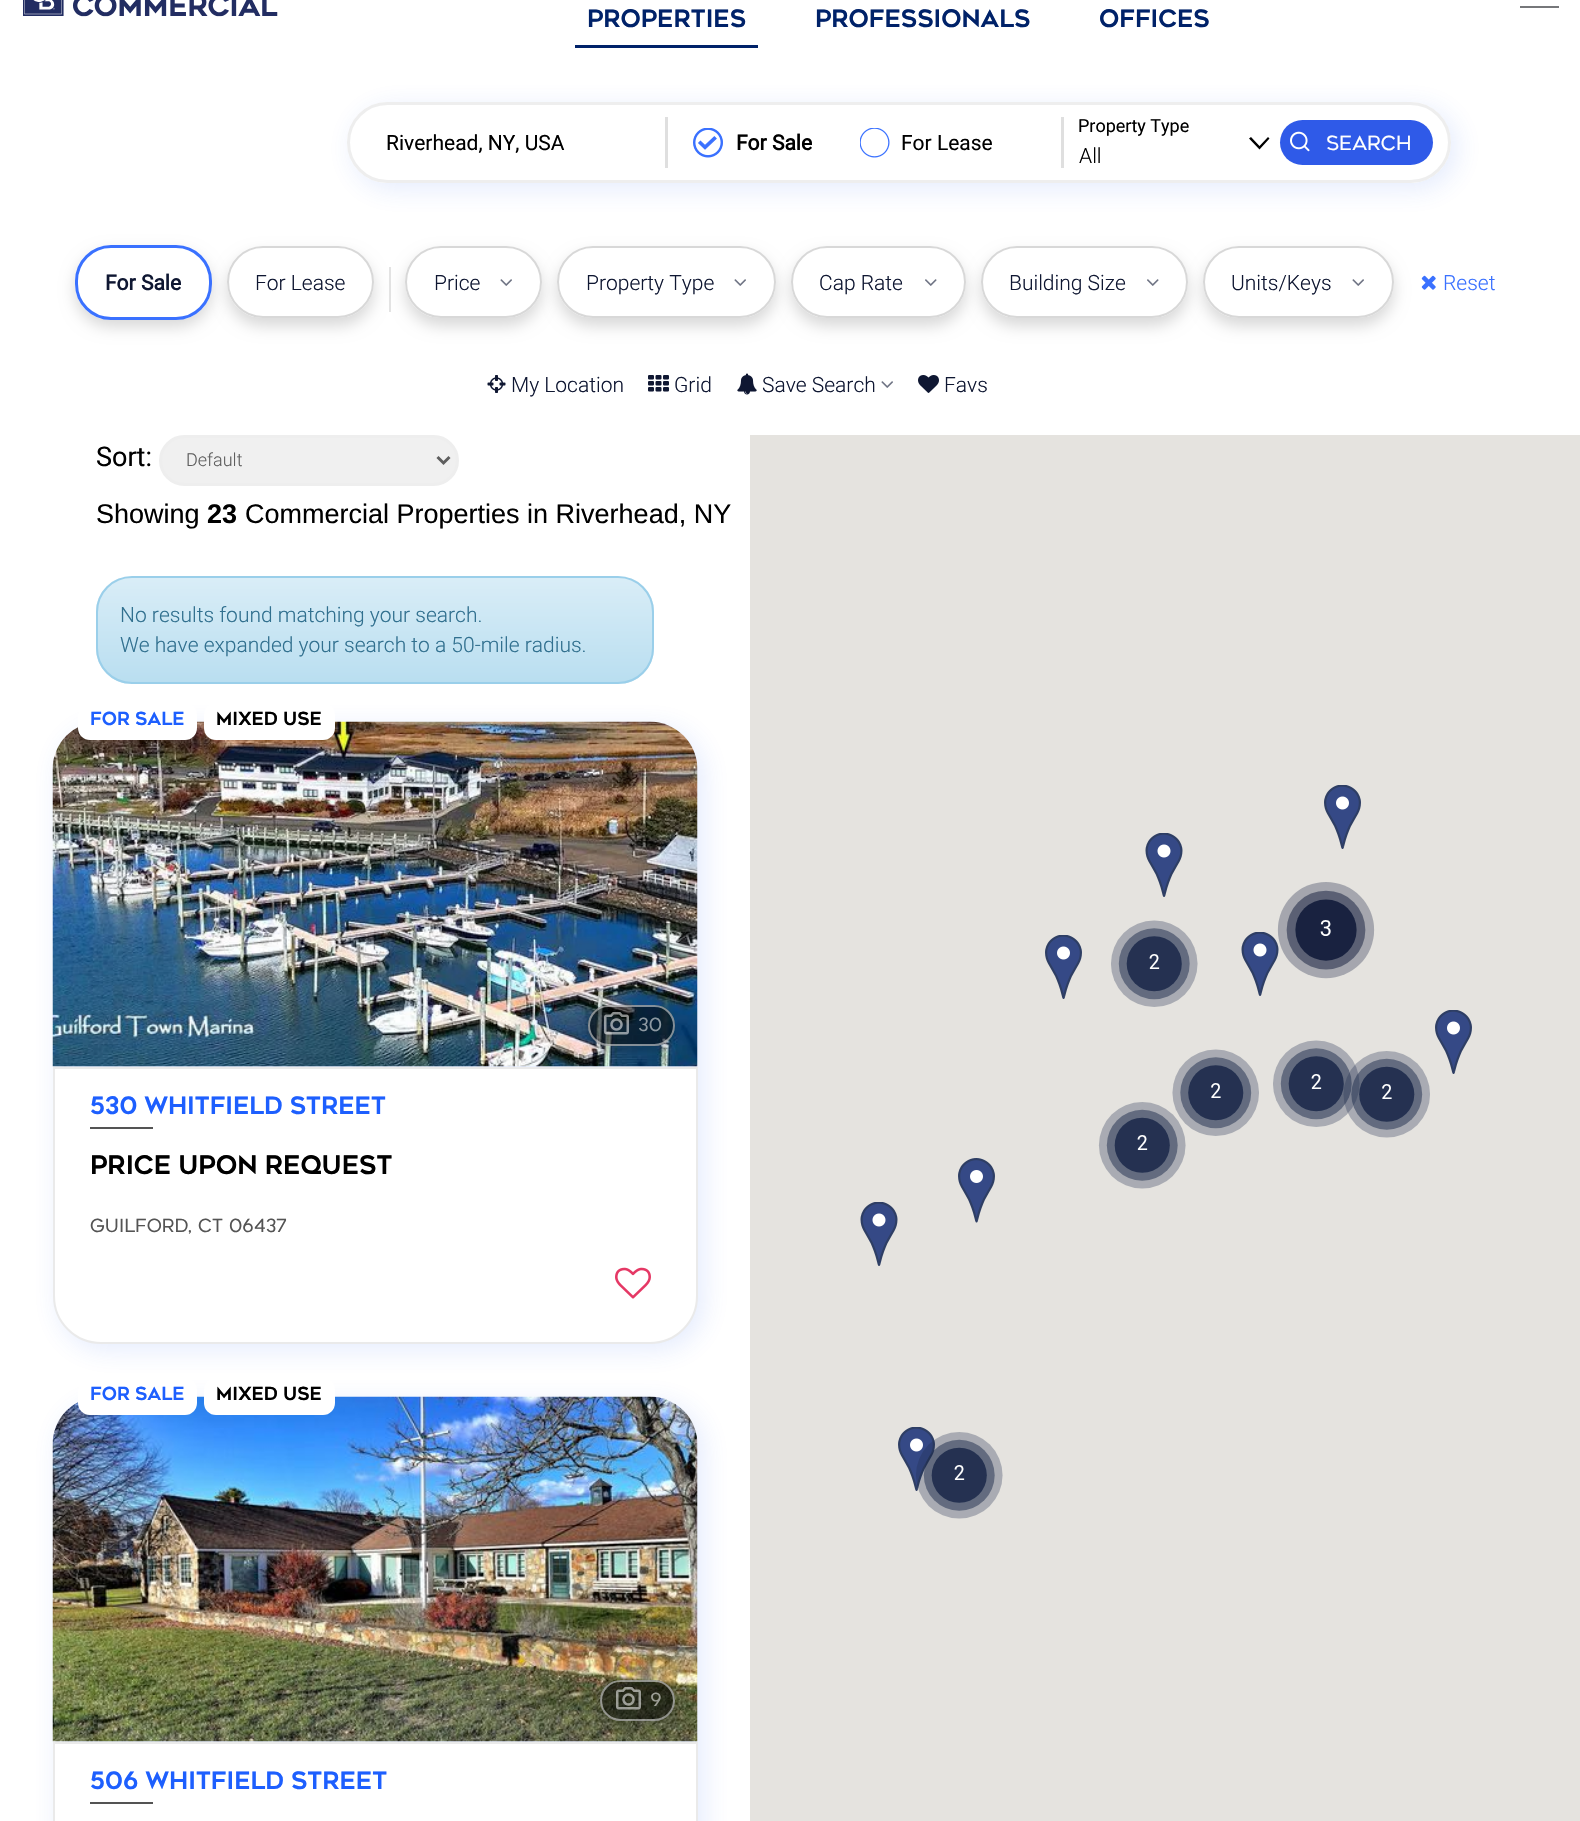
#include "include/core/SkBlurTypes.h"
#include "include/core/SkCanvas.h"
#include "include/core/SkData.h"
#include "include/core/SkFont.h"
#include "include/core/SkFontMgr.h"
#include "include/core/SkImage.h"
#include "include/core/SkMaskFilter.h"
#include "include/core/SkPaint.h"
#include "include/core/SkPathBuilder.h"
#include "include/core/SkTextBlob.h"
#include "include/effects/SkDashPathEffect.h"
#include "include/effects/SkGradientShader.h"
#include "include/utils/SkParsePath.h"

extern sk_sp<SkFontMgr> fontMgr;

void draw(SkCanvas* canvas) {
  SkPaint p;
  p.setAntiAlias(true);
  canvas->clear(SK_ColorWHITE);
  canvas->drawImageRect(SkImages::DeferredFromEncodedData(SkData::MakeFromFileName("images/1.png")), SkRect::MakeLTRB(23, 0, 278, 17), SkSamplingOptions());
  p.setColor(SkColorSetRGB(118, 119, 122));
  canvas->drawRect(SkRect::MakeLTRB(1520, 6, 1559, 8), p);
  p.setColor(SkColorSetRGB(0, 34, 105));
  canvas->drawRect(SkRect::MakeLTRB(575, 45, 758, 48), p);
  canvas->save();
  canvas->clipPath(SkPathBuilder(SkPathFillType::kEvenOdd).moveTo(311, 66).lineTo(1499, 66).lineTo(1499, 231).lineTo(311, 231).close().moveTo(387.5f, 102).lineTo(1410.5f, 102).cubicTo(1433, 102, 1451, 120, 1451, 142.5f).cubicTo(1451, 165, 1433, 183, 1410.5f, 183).lineTo(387.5f, 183).cubicTo(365, 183, 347, 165, 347, 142.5f).cubicTo(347, 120, 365, 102, 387.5f, 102).close().detach(), true);
  p.setColor(SkColorSetARGB(33, 45, 102, 241));
  p.setMaskFilter(SkMaskFilter::MakeBlur(kNormal_SkBlurStyle, 13.5f));
  canvas->drawRoundRect(SkRect::MakeLTRB(353, 108, 1457, 189), 40.5f, 40.5f, p);
  p.setMaskFilter(nullptr);
  canvas->restore();
  p.setStyle(SkPaint::kStroke_Style);
  p.setStrokeWidth(3);
  p.setColor(SkColorSetRGB(238, 238, 238));
  canvas->drawRoundRect(SkRect::MakeLTRB(348.5f, 103.5f, 1449.5f, 181.5f), 39, 39, p);
  p.setStyle(SkPaint::kFill_Style);
  p.setColor(SkColorSetRGB(223, 223, 223));
  canvas->drawRect(SkRect::MakeLTRB(1061, 117, 1064, 168), p);
  canvas->drawRect(SkRect::MakeLTRB(665, 117, 668, 168), p);
  canvas->drawImageRect(SkImages::DeferredFromEncodedData(SkData::MakeFromFileName("images/2.png")), SkRect::MakeLTRB(693, 128, 723, 158), SkSamplingOptions());
  canvas->drawImageRect(SkImages::DeferredFromEncodedData(SkData::MakeFromFileName("images/3.png")), SkRect::MakeLTRB(860, 128, 890, 158), SkSamplingOptions());
  p.setColor(SK_ColorBLACK);
  canvas->drawPath(SkPathBuilder().moveTo(1259.5f, 149.5f).lineTo(1249, 138.5f).lineTo(1251, 137).lineTo(1259.5f, 146).lineTo(1268, 137).lineTo(1269.5f, 138.5f).close().detach(), p);
  p.setColor(SkColorSetRGB(47, 90, 232));
  canvas->drawRoundRect(SkRect::MakeLTRB(1280, 120, 1433, 165), 22.5f, 22.5f, p);
  canvas->drawImageRect(SkImages::DeferredFromEncodedData(SkData::MakeFromFileName("images/4.png")), SkRect::MakeLTRB(1290, 131, 1310, 152), SkSamplingOptions());
  canvas->save();
  canvas->clipPath(SkPathBuilder(SkPathFillType::kEvenOdd).moveTo(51, 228).lineTo(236, 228).lineTo(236, 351).lineTo(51, 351).close().moveTo(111, 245).lineTo(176, 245).cubicTo(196, 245, 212, 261, 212, 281).lineTo(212, 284).cubicTo(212, 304, 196, 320, 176, 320).lineTo(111, 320).cubicTo(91, 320, 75, 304, 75, 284).lineTo(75, 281).cubicTo(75, 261, 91, 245, 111, 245).close().detach(), true);
  p.setColor(SkColorSetRGB(216, 216, 216));
  p.setMaskFilter(SkMaskFilter::MakeBlur(kNormal_SkBlurStyle, 7.5f));
  canvas->drawRoundRect(SkRect::MakeLTRB(75, 252, 212, 327), 36, 36, p);
  p.setMaskFilter(nullptr);
  canvas->restore();
  p.setStyle(SkPaint::kStroke_Style);
  p.setColor(SkColorSetRGB(58, 113, 255));
  canvas->drawRoundRect(SkRect::MakeLTRB(76.5f, 246.5f, 210.5f, 318.5f), 34.5f, 34.5f, p);
  canvas->save();
  canvas->clipPath(SkPathBuilder(SkPathFillType::kEvenOdd).moveTo(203, 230).lineTo(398, 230).lineTo(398, 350).lineTo(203, 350).close().moveTo(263, 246).lineTo(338, 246).cubicTo(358, 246, 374, 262, 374, 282).cubicTo(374, 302, 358, 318, 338, 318).lineTo(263, 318).cubicTo(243, 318, 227, 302, 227, 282).cubicTo(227, 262, 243, 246, 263, 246).close().detach(), true);
  p.setStyle(SkPaint::kFill_Style);
  p.setColor(SkColorSetRGB(216, 216, 216));
  p.setMaskFilter(SkMaskFilter::MakeBlur(kNormal_SkBlurStyle, 7.5f));
  canvas->drawRoundRect(SkRect::MakeLTRB(227, 254, 374, 326), 36, 36, p);
  p.setMaskFilter(nullptr);
  canvas->restore();
  p.setStyle(SkPaint::kStroke_Style);
  p.setStrokeWidth(2);
  canvas->drawRoundRect(SkRect::MakeLTRB(228, 247, 373, 317), 35, 35, p);
  p.setStyle(SkPaint::kFill_Style);
  p.setColor(SkColorSetRGB(227, 227, 227));
  canvas->drawRect(SkRect::MakeLTRB(389, 267, 391, 312), p);
  canvas->save();
  canvas->clipPath(SkPathBuilder(SkPathFillType::kEvenOdd).moveTo(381, 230).lineTo(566, 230).lineTo(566, 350).lineTo(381, 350).close().moveTo(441, 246).lineTo(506, 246).cubicTo(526, 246, 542, 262, 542, 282).cubicTo(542, 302, 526, 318, 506, 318).lineTo(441, 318).cubicTo(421, 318, 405, 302, 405, 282).cubicTo(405, 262, 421, 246, 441, 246).close().detach(), true);
  p.setColor(SkColorSetRGB(216, 216, 216));
  p.setMaskFilter(SkMaskFilter::MakeBlur(kNormal_SkBlurStyle, 7.5f));
  canvas->drawRoundRect(SkRect::MakeLTRB(405, 254, 542, 326), 36, 36, p);
  p.setMaskFilter(nullptr);
  canvas->restore();
  p.setStyle(SkPaint::kStroke_Style);
  canvas->drawRoundRect(SkRect::MakeLTRB(406, 247, 541, 317), 35, 35, p);
  canvas->drawImageRect(SkImages::DeferredFromEncodedData(SkData::MakeFromFileName("images/5.png")), SkRect::MakeLTRB(500, 279, 512, 286), SkSamplingOptions());
  canvas->save();
  canvas->clipPath(SkPathBuilder(SkPathFillType::kEvenOdd).moveTo(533, 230).lineTo(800, 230).lineTo(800, 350).lineTo(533, 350).close().moveTo(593, 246).lineTo(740, 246).cubicTo(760, 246, 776, 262, 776, 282).cubicTo(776, 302, 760, 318, 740, 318).lineTo(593, 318).cubicTo(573, 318, 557, 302, 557, 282).cubicTo(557, 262, 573, 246, 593, 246).close().detach(), true);
  p.setStyle(SkPaint::kFill_Style);
  p.setMaskFilter(SkMaskFilter::MakeBlur(kNormal_SkBlurStyle, 7.5f));
  canvas->drawRoundRect(SkRect::MakeLTRB(557, 254, 776, 326), 36, 36, p);
  p.setMaskFilter(nullptr);
  canvas->restore();
  p.setStyle(SkPaint::kStroke_Style);
  canvas->drawRoundRect(SkRect::MakeLTRB(558, 247, 775, 317), 35, 35, p);
  canvas->drawImageRect(SkImages::DeferredFromEncodedData(SkData::MakeFromFileName("images/5.png")), SkRect::MakeLTRB(734, 279, 746, 286), SkSamplingOptions());
  canvas->save();
  canvas->clipPath(SkPathBuilder(SkPathFillType::kEvenOdd).moveTo(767, 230).lineTo(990, 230).lineTo(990, 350).lineTo(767, 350).close().moveTo(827, 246).lineTo(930, 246).cubicTo(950, 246, 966, 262, 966, 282).cubicTo(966, 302, 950, 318, 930, 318).lineTo(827, 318).cubicTo(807, 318, 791, 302, 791, 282).cubicTo(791, 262, 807, 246, 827, 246).close().detach(), true);
  p.setStyle(SkPaint::kFill_Style);
  p.setMaskFilter(SkMaskFilter::MakeBlur(kNormal_SkBlurStyle, 7.5f));
  canvas->drawRoundRect(SkRect::MakeLTRB(791, 254, 966, 326), 36, 36, p);
  p.setMaskFilter(nullptr);
  canvas->restore();
  p.setStyle(SkPaint::kStroke_Style);
  canvas->drawRoundRect(SkRect::MakeLTRB(792, 247, 965, 317), 35, 35, p);
  canvas->drawImageRect(SkImages::DeferredFromEncodedData(SkData::MakeFromFileName("images/6.png")), SkRect::MakeLTRB(925, 279, 937, 286), SkSamplingOptions());
  canvas->save();
  canvas->clipPath(SkPathBuilder(SkPathFillType::kEvenOdd).moveTo(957, 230).lineTo(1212, 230).lineTo(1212, 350).lineTo(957, 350).close().moveTo(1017, 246).lineTo(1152, 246).cubicTo(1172, 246, 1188, 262, 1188, 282).cubicTo(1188, 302, 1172, 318, 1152, 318).lineTo(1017, 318).cubicTo(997, 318, 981, 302, 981, 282).cubicTo(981, 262, 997, 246, 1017, 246).close().detach(), true);
  p.setStyle(SkPaint::kFill_Style);
  p.setMaskFilter(SkMaskFilter::MakeBlur(kNormal_SkBlurStyle, 7.5f));
  canvas->drawRoundRect(SkRect::MakeLTRB(981, 254, 1188, 326), 36, 36, p);
  p.setMaskFilter(nullptr);
  canvas->restore();
  p.setStyle(SkPaint::kStroke_Style);
  canvas->drawRoundRect(SkRect::MakeLTRB(982, 247, 1187, 317), 35, 35, p);
  canvas->drawImageRect(SkImages::DeferredFromEncodedData(SkData::MakeFromFileName("images/6.png")), SkRect::MakeLTRB(1147, 279, 1159, 286), SkSamplingOptions());
  canvas->save();
  canvas->clipPath(SkPathBuilder(SkPathFillType::kEvenOdd).moveTo(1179, 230).lineTo(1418, 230).lineTo(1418, 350).lineTo(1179, 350).close().moveTo(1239, 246).lineTo(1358, 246).cubicTo(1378, 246, 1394, 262, 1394, 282).cubicTo(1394, 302, 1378, 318, 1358, 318).lineTo(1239, 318).cubicTo(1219, 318, 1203, 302, 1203, 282).cubicTo(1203, 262, 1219, 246, 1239, 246).close().detach(), true);
  p.setStyle(SkPaint::kFill_Style);
  p.setMaskFilter(SkMaskFilter::MakeBlur(kNormal_SkBlurStyle, 7.5f));
  canvas->drawRoundRect(SkRect::MakeLTRB(1203, 254, 1394, 326), 36, 36, p);
  p.setMaskFilter(nullptr);
  canvas->restore();
  p.setStyle(SkPaint::kStroke_Style);
  canvas->drawRoundRect(SkRect::MakeLTRB(1204, 247, 1393, 317), 35, 35, p);
  canvas->drawImageRect(SkImages::DeferredFromEncodedData(SkData::MakeFromFileName("images/5.png")), SkRect::MakeLTRB(1352, 279, 1364, 286), SkSamplingOptions());
  canvas->drawImageRect(SkImages::DeferredFromEncodedData(SkData::MakeFromFileName("images/7.png")), SkRect::MakeLTRB(1421, 275, 1436, 290), SkSamplingOptions());
  canvas->drawImageRect(SkImages::DeferredFromEncodedData(SkData::MakeFromFileName("images/8.png")), SkRect::MakeLTRB(487, 375, 506, 393), SkSamplingOptions());
  canvas->drawImageRect(SkImages::DeferredFromEncodedData(SkData::MakeFromFileName("images/9.png")), SkRect::MakeLTRB(648, 375, 669, 392), SkSamplingOptions());
  canvas->drawImageRect(SkImages::DeferredFromEncodedData(SkData::MakeFromFileName("images/10.png")), SkRect::MakeLTRB(737, 373, 757, 395), SkSamplingOptions());
  canvas->drawImageRect(SkImages::DeferredFromEncodedData(SkData::MakeFromFileName("images/5.png")), SkRect::MakeLTRB(881, 381, 893, 388), SkSamplingOptions());
  canvas->drawImageRect(SkImages::DeferredFromEncodedData(SkData::MakeFromFileName("images/11.png")), SkRect::MakeLTRB(918, 375, 939, 393), SkSamplingOptions());
  p.setStyle(SkPaint::kFill_Style);
  p.setColor(SkColorSetRGB(240, 240, 240));
  canvas->drawRoundRect(SkRect::MakeLTRB(160.5f, 436.5f, 457.5f, 484.5f), 24, 24, p);
  p.setStyle(SkPaint::kStroke_Style);
  p.setStrokeWidth(3);
  p.setColor(SkColorSetRGB(238, 238, 238));
  canvas->drawRoundRect(SkRect::MakeLTRB(160.5f, 436.5f, 457.5f, 484.5f), 24, 24, p);
  p.setColor(SkColorSetRGB(94, 94, 94));
  canvas->drawPath(SkPathBuilder().moveTo(437.5f, 457).lineTo(443.5f, 463).lineTo(449.5f, 457).detach(), p);
  canvas->save();
  canvas->clipPath(SkPathBuilder().moveTo(132, 576).lineTo(618, 576).cubicTo(638, 576, 654, 592, 654, 612).lineTo(654, 648).cubicTo(654, 668, 638, 684, 618, 684).lineTo(132, 684).cubicTo(112, 684, 96, 668, 96, 648).lineTo(96, 612).cubicTo(96, 592, 112, 576, 132, 576).close().detach(), true);
  p.setStyle(SkPaint::kFill_Style);
  {
    const SkColor colors[] = {SkColorSetRGB(217, 237, 247), SkColorSetRGB(185, 222, 240)};
    const float stops[] = {0, 1};
    const SkPoint ends[] = {{375, 578}, {375, 683}};
    p.setShader(SkGradientShader::MakeLinear(ends, colors, stops, 2, SkTileMode::kClamp));
    p.setAlpha(255);
  }
  canvas->drawRect(SkRect::MakeLTRB(96, 578, 654, 683), p);
  canvas->restore();
  p.setStyle(SkPaint::kStroke_Style);
  p.setStrokeWidth(2);
  p.setShader(nullptr);
  p.setColor(SkColorSetRGB(154, 207, 234));
  canvas->drawRoundRect(SkRect::MakeLTRB(97, 577, 653, 683), 35, 35, p);
  p.setStyle(SkPaint::kFill_Style);
  p.setColor(SkColorSetARGB(33, 45, 102, 241));
  p.setMaskFilter(SkMaskFilter::MakeBlur(kNormal_SkBlurStyle, 13.5f));
  canvas->drawRoundRect(SkRect::MakeLTRB(59, 728, 704, 1350), 48, 48, p);
  p.setMaskFilter(nullptr);
  canvas->drawImageRect(SkImages::DeferredFromEncodedData(SkData::MakeFromFileName("images/12.png")), SkRect::MakeLTRB(52, 721, 698, 1067), SkSamplingOptions());
  p.setColor(SK_ColorWHITE);
  canvas->drawRoundRect(SkRect::MakeLTRB(78, 702, 197, 740), 12, 12, p);
  canvas->drawRoundRect(SkRect::MakeLTRB(204, 702, 335, 740), 12, 12, p);
  canvas->save();
  canvas->clipPath(SkPathBuilder(SkPathFillType::kEvenOdd).moveTo(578, 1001).lineTo(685, 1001).lineTo(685, 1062).lineTo(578, 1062).close().moveTo(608.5f, 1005).lineTo(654.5f, 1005).cubicTo(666, 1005, 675, 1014, 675, 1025.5f).cubicTo(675, 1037, 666, 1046, 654.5f, 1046).lineTo(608.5f, 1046).cubicTo(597, 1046, 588, 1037, 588, 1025.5f).cubicTo(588, 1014, 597, 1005, 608.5f, 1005).close().detach(), true);
  p.setColor(SkColorSetARGB(36, 0, 0, 0));
  p.setMaskFilter(SkMaskFilter::MakeBlur(kNormal_SkBlurStyle, 3));
  canvas->drawRoundRect(SkRect::MakeLTRB(588, 1011, 675, 1052), 20.5f, 20.5f, p);
  p.setMaskFilter(nullptr);
  canvas->restore();
  p.setColor(SkColorSetARGB(138, 0, 0, 0));
  canvas->drawRoundRect(SkRect::MakeLTRB(588, 1005, 675, 1046), 20.5f, 20.5f, p);
  p.setStyle(SkPaint::kStroke_Style);
  p.setColor(SkColorSetARGB(138, 234, 234, 234));
  canvas->drawRoundRect(SkRect::MakeLTRB(589, 1006, 674, 1045), 19.5f, 19.5f, p);
  canvas->drawImageRect(SkImages::DeferredFromEncodedData(SkData::MakeFromFileName("images/13.png")), SkRect::MakeLTRB(604, 1012, 629, 1035), SkSamplingOptions());
  p.setStyle(SkPaint::kFill_Style);
  p.setColor(SK_ColorWHITE);
  canvas->drawPath(SkPathBuilder().moveTo(54, 1068).lineTo(697, 1068).lineTo(697, 1296).cubicTo(697, 1322, 676, 1343, 650, 1343).lineTo(101, 1343).cubicTo(75, 1343, 54, 1322, 54, 1296).close().detach(), p);
  p.setStyle(SkPaint::kStroke_Style);
  p.setColor(SkColorSetRGB(234, 234, 234));
  canvas->drawPath(SkPathBuilder().moveTo(54, 1068).lineTo(697, 1068).lineTo(697, 1296).cubicTo(697, 1322, 676, 1343, 650, 1343).lineTo(101, 1343).cubicTo(75, 1343, 54, 1322, 54, 1296).close().detach(), p);
  p.setStyle(SkPaint::kFill_Style);
  p.setColor(SkColorSetRGB(84, 84, 84));
  canvas->drawRect(SkRect::MakeLTRB(90, 1127, 153, 1129), p);
  canvas->drawImageRect(SkImages::DeferredFromEncodedData(SkData::MakeFromFileName("images/14.png")), SkRect::MakeLTRB(615, 1267, 651, 1299), SkSamplingOptions());
  p.setColor(SkColorSetARGB(33, 45, 102, 241));
  p.setMaskFilter(SkMaskFilter::MakeBlur(kNormal_SkBlurStyle, 13.5f));
  canvas->drawRoundRect(SkRect::MakeLTRB(59, 1403, 704, 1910), 48, 48, p);
  p.setMaskFilter(nullptr);
  canvas->drawImageRect(SkImages::DeferredFromEncodedData(SkData::MakeFromFileName("images/15.png")), SkRect::MakeLTRB(52, 1396, 698, 1742), SkSamplingOptions());
  p.setColor(SK_ColorWHITE);
  canvas->drawRoundRect(SkRect::MakeLTRB(78, 1377, 197, 1415), 12, 12, p);
  canvas->drawRoundRect(SkRect::MakeLTRB(204, 1377, 335, 1415), 12, 12, p);
  canvas->save();
  canvas->clipPath(SkPathBuilder(SkPathFillType::kEvenOdd).moveTo(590, 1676).lineTo(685, 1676).lineTo(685, 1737).lineTo(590, 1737).close().moveTo(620.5f, 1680).lineTo(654.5f, 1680).cubicTo(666, 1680, 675, 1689, 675, 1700.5f).cubicTo(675, 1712, 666, 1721, 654.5f, 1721).lineTo(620.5f, 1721).cubicTo(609, 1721, 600, 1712, 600, 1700.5f).cubicTo(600, 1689, 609, 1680, 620.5f, 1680).close().detach(), true);
  p.setColor(SkColorSetARGB(36, 0, 0, 0));
  p.setMaskFilter(SkMaskFilter::MakeBlur(kNormal_SkBlurStyle, 3));
  canvas->drawRoundRect(SkRect::MakeLTRB(600, 1686, 675, 1727), 20.5f, 20.5f, p);
  p.setMaskFilter(nullptr);
  canvas->restore();
  p.setColor(SkColorSetARGB(138, 0, 0, 0));
  canvas->drawRoundRect(SkRect::MakeLTRB(600, 1680, 675, 1721), 20.5f, 20.5f, p);
  p.setStyle(SkPaint::kStroke_Style);
  p.setColor(SkColorSetARGB(138, 234, 234, 234));
  canvas->drawRoundRect(SkRect::MakeLTRB(601, 1681, 674, 1720), 19.5f, 19.5f, p);
  canvas->drawImageRect(SkImages::DeferredFromEncodedData(SkData::MakeFromFileName("images/16.png")), SkRect::MakeLTRB(616, 1687, 641, 1710), SkSamplingOptions());
  p.setStyle(SkPaint::kFill_Style);
  p.setColor(SK_ColorWHITE);
  canvas->drawRect(SkRect::MakeLTRB(54, 1743, 697, 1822), p);
  p.setStyle(SkPaint::kStroke_Style);
  p.setColor(SkColorSetRGB(234, 234, 234));
  canvas->drawRect(SkRect::MakeLTRB(54, 1743, 697, 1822), p);
  p.setStyle(SkPaint::kFill_Style);
  p.setColor(SkColorSetRGB(84, 84, 84));
  canvas->drawRect(SkRect::MakeLTRB(90, 1802, 153, 1804), p);
  p.setColor(SkColorSetRGB(229, 227, 223));
  canvas->drawRect(SkRect::MakeLTRB(750, 435, 1580, 1821), p);
  canvas->drawImageRect(SkImages::DeferredFromEncodedData(SkData::MakeFromFileName("images/17.png")), SkRect::MakeLTRB(1324, 785, 1361, 849), SkSamplingOptions());
  canvas->drawImageRect(SkImages::DeferredFromEncodedData(SkData::MakeFromFileName("images/18.png")), SkRect::MakeLTRB(1145, 833, 1183, 897), SkSamplingOptions());
  canvas->drawImageRect(SkImages::DeferredFromEncodedData(SkData::MakeFromFileName("images/17.png")), SkRect::MakeLTRB(1045, 935, 1082, 999), SkSamplingOptions());
  canvas->drawImageRect(SkImages::DeferredFromEncodedData(SkData::MakeFromFileName("images/19.png")), SkRect::MakeLTRB(1111, 920, 1198, 1007), SkSamplingOptions());
  canvas->drawImageRect(SkImages::DeferredFromEncodedData(SkData::MakeFromFileName("images/18.png")), SkRect::MakeLTRB(1241, 932, 1279, 996), SkSamplingOptions());
  canvas->drawImageRect(SkImages::DeferredFromEncodedData(SkData::MakeFromFileName("images/20.png")), SkRect::MakeLTRB(1277, 882, 1375, 979), SkSamplingOptions());
  canvas->drawImageRect(SkImages::DeferredFromEncodedData(SkData::MakeFromFileName("images/21.png")), SkRect::MakeLTRB(958, 1158, 995, 1223), SkSamplingOptions());
  canvas->drawImageRect(SkImages::DeferredFromEncodedData(SkData::MakeFromFileName("images/23.png")), SkRect::MakeLTRB(1172, 1049, 1259, 1136), SkSamplingOptions());
  canvas->drawImageRect(SkImages::DeferredFromEncodedData(SkData::MakeFromFileName("images/22.png")), SkRect::MakeLTRB(1098, 1102, 1186, 1189), SkSamplingOptions());
  canvas->drawImageRect(SkImages::DeferredFromEncodedData(SkData::MakeFromFileName("images/25.png")), SkRect::MakeLTRB(1343, 1051, 1430, 1138), SkSamplingOptions());
  canvas->drawImageRect(SkImages::DeferredFromEncodedData(SkData::MakeFromFileName("images/24.png")), SkRect::MakeLTRB(1273, 1040, 1360, 1127), SkSamplingOptions());
  canvas->drawImageRect(SkImages::DeferredFromEncodedData(SkData::MakeFromFileName("images/17.png")), SkRect::MakeLTRB(1435, 1010, 1472, 1074), SkSamplingOptions());
  canvas->drawImageRect(SkImages::DeferredFromEncodedData(SkData::MakeFromFileName("images/18.png")), SkRect::MakeLTRB(860, 1202, 898, 1266), SkSamplingOptions());
  canvas->drawImageRect(SkImages::DeferredFromEncodedData(SkData::MakeFromFileName("images/17.png")), SkRect::MakeLTRB(898, 1427, 935, 1491), SkSamplingOptions());
  canvas->drawImageRect(SkImages::DeferredFromEncodedData(SkData::MakeFromFileName("images/26.png")), SkRect::MakeLTRB(916, 1432, 1003, 1519), SkSamplingOptions());
  SkFont font1(fontMgr->matchFamilyStyle("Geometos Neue", SkFontStyle::Bold()), 24);
  font1.setSubpixel(true);
  p.setColor(SkColorSetRGB(0, 34, 105));
  canvas->drawString("PROPERTIES", 587, 27, font1, p);
  canvas->drawString("PROFESSIONALS", 815, 27, font1, p);
  canvas->drawString("OFFICES", 1099, 27, font1, p);
  SkFont font2(fontMgr->matchFamilyStyle("Roboto", SkFontStyle::Normal()), 21);
  font2.setSubpixel(true);
  p.setColor(SK_ColorBLACK);
  canvas->drawString("Riverhead, NY, USA", 386, 150, font2, p);
  SkFont font3(fontMgr->matchFamilyStyle("Roboto", SkFontStyle::Bold()), 21);
  font3.setSubpixel(true);
  canvas->drawString("For Sale", 736, 150, font3, p);
  canvas->drawString("For Lease", 901, 150, font2, p);
  SkFont font4(fontMgr->matchFamilyStyle("Roboto", SkFontStyle::Normal()), 18);
  font4.setSubpixel(true);
  canvas->drawString("Property Type", 1078, 132, font4, p);
  SkFont font5(fontMgr->matchFamilyStyle("Roboto", SkFontStyle(300, SkFontStyle::kNormal_Width, SkFontStyle::kUpright_Slant)), 21);
  font5.setSubpixel(true);
  canvas->drawString("All", 1079, 163, font5, p);
  SkFont font6(fontMgr->matchFamilyStyle("Geometos Neue", SkFontStyle::Normal()), 19.5f);
  font6.setSubpixel(true);
  p.setColor(SK_ColorWHITE);
  canvas->drawString("SEARCH", 1326, 150, font6, p);
  p.setColor(SkColorSetRGB(15, 23, 50));
  canvas->drawString("For Sale", 105, 290, font3, p);
  canvas->drawString("For Lease", 255, 290, font5, p);
  canvas->drawString("Price", 434, 290, font5, p);
  canvas->drawString("Property Type", 586, 290, font5, p);
  canvas->drawString("Cap Rate", 819, 290, font5, p);
  canvas->drawString("Building Size", 1009, 290, font5, p);
  canvas->drawString("Units/Keys", 1231, 290, font5, p);
  p.setColor(SkColorSetRGB(58, 113, 255));
  canvas->drawString("Reset", 1443, 290, font5, p);
  p.setColor(SkColorSetRGB(15, 23, 50));
  canvas->drawString("My Location", 511, 392, font5, p);
  canvas->drawString("Grid", 674, 392, font5, p);
  canvas->drawString("Save Search", 762, 392, font5, p);
  canvas->drawString("Favs", 944, 392, font5, p);
  SkFont font7(fontMgr->matchFamilyStyle("Roboto", SkFontStyle::Normal()), 27);
  font7.setSubpixel(true);
  p.setColor(SK_ColorBLACK);
  canvas->drawString("Sort:", 96, 466, font7, p);
  SkFont font8(fontMgr->matchFamilyStyle("Roboto", SkFontStyle(300, SkFontStyle::kNormal_Width, SkFontStyle::kUpright_Slant)), 18);
  font8.setSubpixel(true);
  p.setColor(SkColorSetRGB(94, 94, 94));
  canvas->drawString("Default", 186, 466, font8, p);
  SkFont font9(fontMgr->matchFamilyStyle("Liberation Sans", SkFontStyle::Normal()), 27);
  font9.setSubpixel(true);
  p.setColor(SK_ColorBLACK);
  canvas->drawString("Showing", 96, 523, font9, p);
  SkFont font10(fontMgr->matchFamilyStyle("Liberation Sans", SkFontStyle::Bold()), 27);
  font10.setSubpixel(true);
  canvas->drawString("23", 207, 523, font10, p);
  canvas->drawString("Commercial Properties in Riverhead, NY", 245, 523, font9, p);
  p.setColor(SkColorSetRGB(49, 112, 143));
  canvas->drawString("No results found matching your search.", 120, 622, font5, p);
  canvas->drawString("We have expanded your search to a 50-mile radius.", 120, 652, font5, p);
  SkFont font11(fontMgr->matchFamilyStyle("Geometos Neue", SkFontStyle::Bold()), 18);
  font11.setSubpixel(true);
  p.setColor(SkColorSetRGB(29, 95, 254));
  canvas->drawString("FOR SALE", 90, 725, font11, p);
  p.setColor(SK_ColorBLACK);
  canvas->drawString("MIXED USE", 216, 725, font11, p);
  SkFont font12(fontMgr->matchFamilyStyle("Geometos Neue", SkFontStyle::Normal()), 18);
  font12.setSubpixel(true);
  p.setColor(SkColorSetRGB(141, 153, 162));
  canvas->drawString("30", 638, 1031, font12, p);
  p.setColor(SkColorSetRGB(29, 95, 254));
  canvas->drawString("530 WHITFIELD STREET", 90, 1114, font1, p);
  SkFont font13(fontMgr->matchFamilyStyle("Geometos Neue", SkFontStyle::Bold()), 25.5f);
  font13.setSubpixel(true);
  p.setColor(SK_ColorBLACK);
  canvas->drawString("PRICE UPON REQUEST", 90, 1174, font13, p);
  p.setColor(SkColorSetRGB(84, 84, 84));
  canvas->drawString("GUILFORD, CT 06437", 90, 1232, font12, p);
  p.setColor(SkColorSetRGB(29, 95, 254));
  canvas->drawString("FOR SALE", 90, 1400, font11, p);
  p.setColor(SK_ColorBLACK);
  canvas->drawString("MIXED USE", 216, 1400, font11, p);
  p.setColor(SkColorSetRGB(157, 158, 150));
  canvas->drawString("9", 650, 1706, font12, p);
  p.setColor(SkColorSetRGB(29, 95, 254));
  canvas->drawString("506 WHITFIELD STREET", 90, 1789, font1, p);
}
